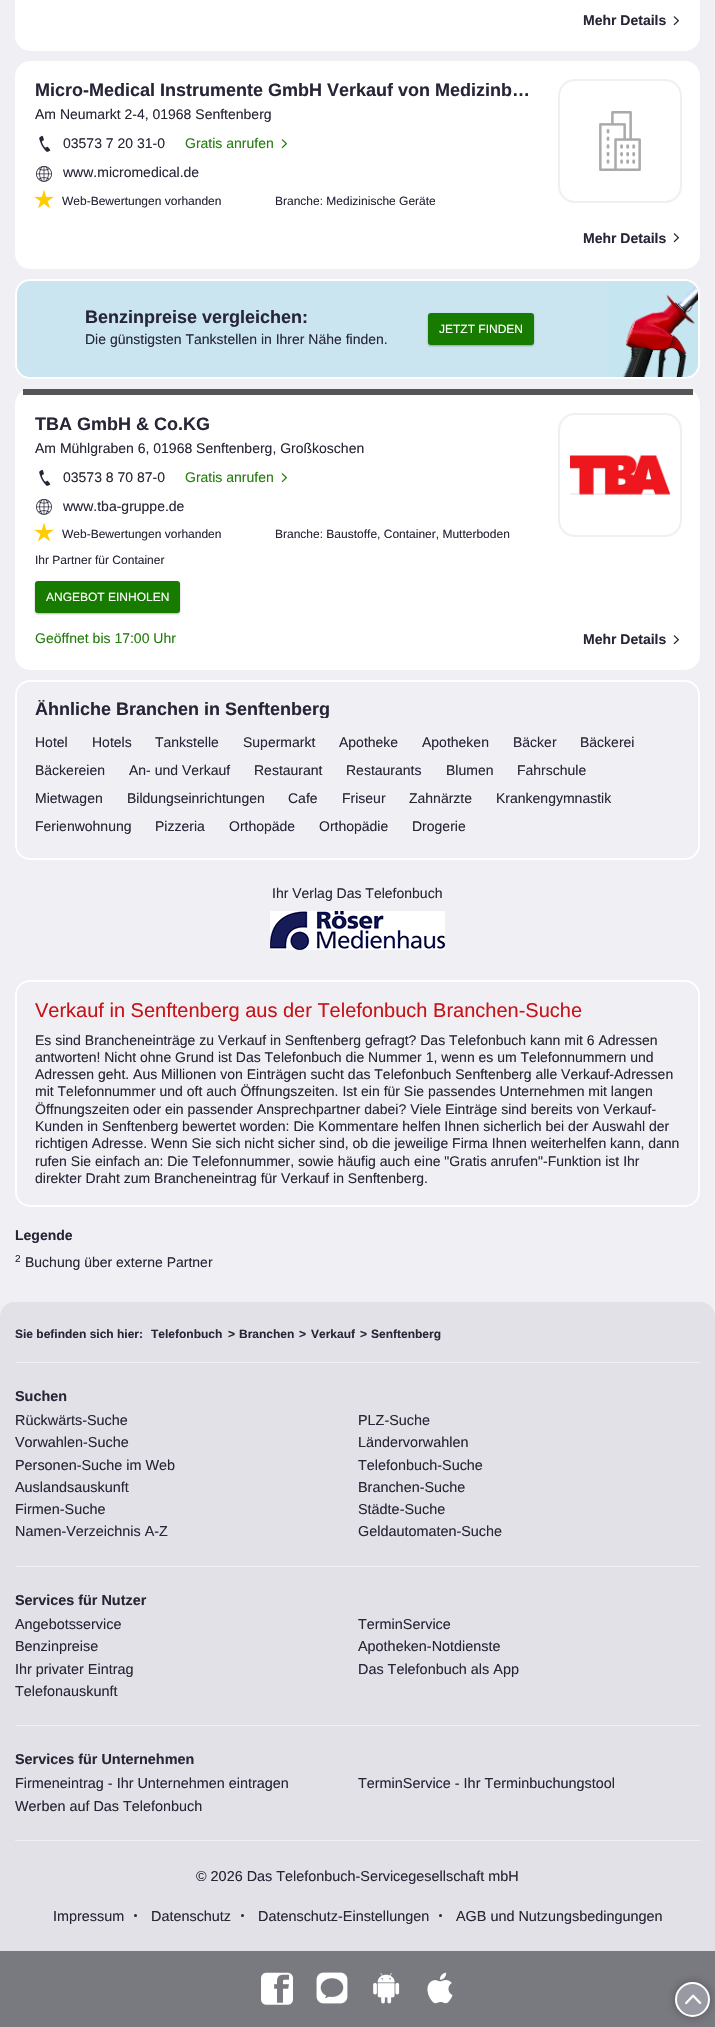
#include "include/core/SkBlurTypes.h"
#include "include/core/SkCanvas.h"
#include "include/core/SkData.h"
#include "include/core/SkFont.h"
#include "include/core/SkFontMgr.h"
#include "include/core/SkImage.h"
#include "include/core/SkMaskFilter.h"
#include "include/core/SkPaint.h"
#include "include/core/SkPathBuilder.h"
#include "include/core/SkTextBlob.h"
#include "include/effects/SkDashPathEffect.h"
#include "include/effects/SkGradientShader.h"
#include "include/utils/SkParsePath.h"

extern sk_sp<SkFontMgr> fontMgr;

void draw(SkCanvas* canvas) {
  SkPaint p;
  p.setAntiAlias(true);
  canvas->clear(SkColorSetRGB(239, 239, 244));
  p.setColor(SK_ColorWHITE);
  canvas->drawRoundRect(SkRect::MakeLTRB(15, -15, 700, 51), 15, 15, p);
  canvas->drawImageRect(SkImages::DeferredFromEncodedData(SkData::MakeFromFileName("images/1.png")), SkRect::MakeLTRB(673, 16, 679, 26), SkSamplingOptions());
  canvas->drawRoundRect(SkRect::MakeLTRB(15, 61, 700, 269), 15, 15, p);
  canvas->drawImageRect(SkImages::DeferredFromEncodedData(SkData::MakeFromFileName("images/2.png")), SkRect::MakeLTRB(39, 135, 51, 152), SkSamplingOptions());
  canvas->drawImageRect(SkImages::DeferredFromEncodedData(SkData::MakeFromFileName("images/3.png")), SkRect::MakeLTRB(281, 139, 287, 149), SkSamplingOptions());
  canvas->drawImageRect(SkImages::DeferredFromEncodedData(SkData::MakeFromFileName("images/4.png")), SkRect::MakeLTRB(36, 166, 52, 182), SkSamplingOptions());
  canvas->drawImageRect(SkImages::DeferredFromEncodedData(SkData::MakeFromFileName("images/5.png")), SkRect::MakeLTRB(34, 189, 54, 209), SkSamplingOptions());
  p.setStyle(SkPaint::kStroke_Style);
  p.setStrokeWidth(2);
  p.setColor(SkColorSetRGB(239, 239, 244));
  canvas->drawRoundRect(SkRect::MakeLTRB(559, 80, 681, 202), 16, 16, p);
  canvas->drawImageRect(SkImages::DeferredFromEncodedData(SkData::MakeFromFileName("images/6.png")), SkRect::MakeLTRB(599, 111, 641, 171), SkSamplingOptions());
  canvas->drawImageRect(SkImages::DeferredFromEncodedData(SkData::MakeFromFileName("images/1.png")), SkRect::MakeLTRB(673, 233, 679, 243), SkSamplingOptions());
  p.setStyle(SkPaint::kFill_Style);
  p.setColor(SkColorSetRGB(203, 229, 240));
  canvas->drawRoundRect(SkRect::MakeLTRB(16, 280, 699, 378), 14, 14, p);
  p.setStyle(SkPaint::kStroke_Style);
  p.setColor(SK_ColorWHITE);
  canvas->drawRoundRect(SkRect::MakeLTRB(16, 280, 699, 378), 14, 14, p);
  p.setStyle(SkPaint::kFill_Style);
  p.setColor(SkColorSetARGB(77, 0, 0, 0));
  p.setMaskFilter(SkMaskFilter::MakeBlur(kNormal_SkBlurStyle, 1));
  canvas->drawRoundRect(SkRect::MakeLTRB(428, 314, 534, 346), 3, 3, p);
  p.setMaskFilter(nullptr);
  p.setColor(SkColorSetRGB(23, 123, 0));
  canvas->drawRoundRect(SkRect::MakeLTRB(428, 313, 534, 345), 3, 3, p);
  canvas->drawImageRect(SkImages::DeferredFromEncodedData(SkData::MakeFromFileName("images/7.png")), SkRect::MakeLTRB(608, 281, 698, 377), SkSamplingOptions());
  p.setColor(SK_ColorWHITE);
  canvas->drawRoundRect(SkRect::MakeLTRB(15, 389, 700, 670), 15, 15, p);
  p.setColor(SkColorSetRGB(85, 85, 85));
  canvas->drawRect(SkRect::MakeLTRB(23, 389, 693, 395), p);
  canvas->drawImageRect(SkImages::DeferredFromEncodedData(SkData::MakeFromFileName("images/2.png")), SkRect::MakeLTRB(39, 469, 51, 486), SkSamplingOptions());
  canvas->drawImageRect(SkImages::DeferredFromEncodedData(SkData::MakeFromFileName("images/3.png")), SkRect::MakeLTRB(281, 473, 287, 483), SkSamplingOptions());
  canvas->drawImageRect(SkImages::DeferredFromEncodedData(SkData::MakeFromFileName("images/4.png")), SkRect::MakeLTRB(36, 499, 52, 515), SkSamplingOptions());
  canvas->drawImageRect(SkImages::DeferredFromEncodedData(SkData::MakeFromFileName("images/5.png")), SkRect::MakeLTRB(34, 522, 54, 542), SkSamplingOptions());
  p.setStyle(SkPaint::kStroke_Style);
  p.setColor(SkColorSetRGB(239, 239, 244));
  canvas->drawRoundRect(SkRect::MakeLTRB(559, 414, 681, 536), 16, 16, p);
  canvas->drawImageRect(SkImages::DeferredFromEncodedData(SkData::MakeFromFileName("images/8.png")), SkRect::MakeLTRB(570, 455, 670, 495), SkSamplingOptions());
  p.setStyle(SkPaint::kFill_Style);
  p.setColor(SkColorSetARGB(77, 0, 0, 0));
  p.setMaskFilter(SkMaskFilter::MakeBlur(kNormal_SkBlurStyle, 1));
  canvas->drawRoundRect(SkRect::MakeLTRB(35, 582, 180, 614), 3, 3, p);
  p.setMaskFilter(nullptr);
  p.setColor(SkColorSetRGB(23, 123, 0));
  canvas->drawRoundRect(SkRect::MakeLTRB(35, 581, 180, 613), 3, 3, p);
  canvas->drawImageRect(SkImages::DeferredFromEncodedData(SkData::MakeFromFileName("images/1.png")), SkRect::MakeLTRB(673, 635, 679, 645), SkSamplingOptions());
  p.setStyle(SkPaint::kStroke_Style);
  p.setColor(SK_ColorWHITE);
  canvas->drawRoundRect(SkRect::MakeLTRB(16, 681, 699, 859), 14, 14, p);
  canvas->drawImageRect(SkImages::DeferredFromEncodedData(SkData::MakeFromFileName("images/9.png")), SkRect::MakeLTRB(270, 911, 445, 950), SkSamplingOptions());
  canvas->drawRoundRect(SkRect::MakeLTRB(16, 981, 699, 1206), 14, 14, p);
  p.setStyle(SkPaint::kFill_Style);
  p.setColor(SkColorSetRGB(121, 121, 128));
  canvas->drawRect(SkRect::MakeLTRB(0, 1951, 715, 2027), p);
  p.setColor(SkColorSetARGB(77, 0, 0, 0));
  p.setMaskFilter(SkMaskFilter::MakeBlur(kNormal_SkBlurStyle, 5));
  canvas->drawRoundRect(SkRect::MakeLTRB(675, 1982, 710, 2017), 17.5f, 17.5f, p);
  p.setMaskFilter(nullptr);
  p.setColor(SkColorSetRGB(153, 153, 163));
  canvas->drawCircle(692.5f, 1999.5f, 16.5f, p);
  p.setStyle(SkPaint::kStroke_Style);
  p.setColor(SK_ColorWHITE);
  canvas->drawCircle(692.5f, 1999.5f, 16.5f, p);
  canvas->drawImageRect(SkImages::DeferredFromEncodedData(SkData::MakeFromFileName("images/10.png")), SkRect::MakeLTRB(685, 1994, 702, 2005), SkSamplingOptions());
  p.setStyle(SkPaint::kFill_Style);
  p.setColor(SkColorSetRGB(225, 225, 231));
  canvas->drawPath(SkPathBuilder().moveTo(15, 1302).lineTo(700, 1302).cubicTo(708.5f, 1302, 715, 1308.5f, 715, 1317).lineTo(715, 1363).lineTo(0, 1363).lineTo(0, 1317).cubicTo(0, 1308.5f, 6.5f, 1302, 15, 1302).close().detach(), p);
  p.setColor(SkColorSetRGB(239, 239, 244));
  canvas->drawRect(SkRect::MakeLTRB(15, 1362, 700, 1363), p);
  p.setColor(SkColorSetRGB(225, 225, 231));
  canvas->drawRect(SkRect::MakeLTRB(0, 1363, 715, 1951), p);
  p.setColor(SkColorSetRGB(239, 239, 244));
  canvas->drawRect(SkRect::MakeLTRB(15, 1566, 700, 1567), p);
  canvas->drawRect(SkRect::MakeLTRB(15, 1725, 700, 1726), p);
  canvas->drawRect(SkRect::MakeLTRB(15, 1840, 700, 1841), p);
  p.setColor(SkColorSetRGB(38, 38, 55));
  canvas->drawCircle(135.5f, 1915.5f, 1.5f, p);
  canvas->drawCircle(242.5f, 1915.5f, 1.5f, p);
  canvas->drawCircle(440.5f, 1915.5f, 1.5f, p);
  canvas->drawImageRect(SkImages::DeferredFromEncodedData(SkData::MakeFromFileName("images/11.png")), SkRect::MakeLTRB(261, 1972, 293, 2005), SkSamplingOptions());
  canvas->drawImageRect(SkImages::DeferredFromEncodedData(SkData::MakeFromFileName("images/12.png")), SkRect::MakeLTRB(316, 1972, 348, 2004), SkSamplingOptions());
  canvas->drawImageRect(SkImages::DeferredFromEncodedData(SkData::MakeFromFileName("images/13.png")), SkRect::MakeLTRB(373, 1973, 400, 2004), SkSamplingOptions());
  canvas->drawImageRect(SkImages::DeferredFromEncodedData(SkData::MakeFromFileName("images/14.png")), SkRect::MakeLTRB(427, 1972, 453, 2004), SkSamplingOptions());
  SkFont font1(fontMgr->matchFamilyStyle("Liberation Sans", SkFontStyle::Bold()), 14);
  font1.setSubpixel(true);
  canvas->drawString("Mehr Details", 583, 25, font1, p);
  SkFont font2(fontMgr->matchFamilyStyle("Liberation Sans", SkFontStyle::Bold()), 18);
  font2.setSubpixel(true);
  canvas->drawString("Micro-Medical Instrumente GmbH Verkauf von Medizinb…", 35, 96, font2, p);
  SkFont font3(fontMgr->matchFamilyStyle("Liberation Sans", SkFontStyle::Normal()), 14);
  font3.setSubpixel(true);
  canvas->drawString("Am Neumarkt 2-4, 01968 Senftenberg", 35, 119, font3, p);
  canvas->drawString("03573 7 20 31-0", 63, 148, font3, p);
  p.setColor(SkColorSetRGB(35, 125, 13));
  canvas->drawString("Gratis anrufen", 185, 148, font3, p);
  p.setColor(SkColorSetRGB(38, 38, 55));
  canvas->drawString("www.micromedical.de", 63, 177, font3, p);
  SkFont font4(fontMgr->matchFamilyStyle("Liberation Sans", SkFontStyle::Normal()), 12);
  font4.setSubpixel(true);
  canvas->drawString("Web-Bewertungen vorhanden", 62, 205, font4, p);
  canvas->drawString("Branche: Medizinische Geräte", 275, 205, font4, p);
  canvas->drawString("Mehr Details", 583, 243, font1, p);
  canvas->drawString("Benzinpreise vergleichen:", 85, 323, font2, p);
  canvas->drawString("Die günstigsten Tankstellen in Ihrer Nähe finden.", 85, 344, font3, p);
  p.setColor(SK_ColorWHITE);
  canvas->drawString("JETZT FINDEN", 439, 333, font4, p);
  p.setColor(SkColorSetRGB(38, 38, 55));
  canvas->drawString("TBA GmbH & Co.KG", 35, 430, font2, p);
  canvas->drawString("Am Mühlgraben 6, 01968 Senftenberg, Großkoschen", 35, 453, font3, p);
  canvas->drawString("03573 8 70 87-0", 63, 482, font3, p);
  p.setColor(SkColorSetRGB(35, 125, 13));
  canvas->drawString("Gratis anrufen", 185, 482, font3, p);
  p.setColor(SkColorSetRGB(38, 38, 55));
  canvas->drawString("www.tba-gruppe.de", 63, 511, font3, p);
  canvas->drawString("Web-Bewertungen vorhanden", 62, 538, font4, p);
  canvas->drawString("Branche: Baustoffe, Container, Mutterboden", 275, 538, font4, p);
  canvas->drawString("Ihr Partner für Container", 35, 564, font4, p);
  p.setColor(SK_ColorWHITE);
  canvas->drawString("ANGEBOT EINHOLEN", 46, 601, font4, p);
  p.setColor(SkColorSetRGB(35, 125, 13));
  canvas->drawString("Geöffnet bis 17:00 Uhr", 35, 643, font3, p);
  p.setColor(SkColorSetRGB(38, 38, 55));
  canvas->drawString("Mehr Details", 583, 644, font1, p);
  canvas->save();
  canvas->clipRect(SkRect::MakeLTRB(35, 700, 680, 718));
  canvas->drawString("Ähnliche Branchen in Senftenberg", 35, 715, font2, p);
  canvas->restore();
  canvas->drawString("Hotel", 35, 747, font3, p);
  canvas->drawString("Hotels", 92, 747, font3, p);
  canvas->drawString("Tankstelle", 155, 747, font3, p);
  canvas->drawString("Supermarkt", 243, 747, font3, p);
  canvas->drawString("Apotheke", 339, 747, font3, p);
  canvas->drawString("Apotheken", 422, 747, font3, p);
  canvas->drawString("Bäcker", 513, 747, font3, p);
  canvas->drawString("Bäckerei", 580, 747, font3, p);
  canvas->drawString("Bäckereien", 35, 775, font3, p);
  canvas->drawString("An- und Verkauf", 129, 775, font3, p);
  canvas->drawString("Restaurant", 254, 775, font3, p);
  canvas->drawString("Restaurants", 346, 775, font3, p);
  canvas->drawString("Blumen", 446, 775, font3, p);
  canvas->drawString("Fahrschule", 517, 775, font3, p);
  canvas->drawString("Mietwagen", 35, 803, font3, p);
  canvas->drawString("Bildungseinrichtungen", 127, 803, font3, p);
  canvas->drawString("Cafe", 288, 803, font3, p);
  canvas->drawString("Friseur", 342, 803, font3, p);
  canvas->drawString("Zahnärzte", 409, 803, font3, p);
  canvas->drawString("Krankengymnastik", 496, 803, font3, p);
  canvas->drawString("Ferienwohnung", 35, 831, font3, p);
  canvas->drawString("Pizzeria", 155, 831, font3, p);
  canvas->drawString("Orthopäde", 229, 831, font3, p);
  canvas->drawString("Orthopädie", 319, 831, font3, p);
  canvas->drawString("Drogerie", 412, 831, font3, p);
  canvas->drawString("Ihr Verlag Das Telefonbuch", 272, 898, font3, p);
  SkFont font5(fontMgr->matchFamilyStyle("Liberation Sans", SkFontStyle::Normal()), 20);
  font5.setSubpixel(true);
  p.setColor(SkColorSetRGB(199, 20, 24));
  canvas->drawString("Verkauf in Senftenberg aus der Telefonbuch Branchen-Suche", 35, 1017, font5, p);
  p.setColor(SkColorSetRGB(38, 38, 55));
  canvas->drawString("Es sind Brancheneinträge zu Verkauf in Senftenberg gefragt? Das Telefonbuch kann mit 6 Adressen", 35, 1045, font3, p);
  canvas->drawString("antworten! Nicht ohne Grund ist Das Telefonbuch die Nummer 1, wenn es um Telefonnummern und", 35, 1062, font3, p);
  canvas->drawString("Adressen geht. Aus Millionen von Einträgen sucht das Telefonbuch Senftenberg alle Verkauf-Adressen", 35, 1079, font3, p);
  canvas->drawString("mit Telefonnummer und oft auch Öffnungszeiten. Ist ein für Sie passendes Unternehmen mit langen", 35, 1096, font3, p);
  canvas->drawString("Öffnungszeiten oder ein passender Ansprechpartner dabei? Viele Einträge sind bereits von Verkauf-", 35, 1114, font3, p);
  canvas->drawString("Kunden in Senftenberg bewertet worden: Die Kommentare helfen Ihnen sicherlich bei der Auswahl der", 35, 1131, font3, p);
  canvas->drawString("richtigen Adresse. Wenn Sie sich nicht sicher sind, ob die jeweilige Firma Ihnen weiterhelfen kann, dann", 35, 1148, font3, p);
  canvas->drawString("rufen Sie einfach an: Die Telefonnummer, sowie häufig auch eine \"Gratis anrufen\"-Funktion ist Ihr", 35, 1166, font3, p);
  canvas->drawString("direkter Draht zum Brancheneintrag für Verkauf in Senftenberg.", 35, 1183, font3, p);
  canvas->drawString("Legende", 15, 1240, font1, p);
  SkFont font6(fontMgr->matchFamilyStyle("Liberation Sans", SkFontStyle::Normal()), 10);
  font6.setSubpixel(true);
  canvas->drawString("2", 15, 1262, font6, p);
  canvas->drawString("Buchung über externe Partner", 25, 1267, font3, p);
  SkFont font7(fontMgr->matchFamilyStyle("Liberation Sans", SkFontStyle::Bold()), 12);
  font7.setSubpixel(true);
  canvas->drawString("Sie befinden sich hier:", 15, 1338, font7, p);
  canvas->drawString("Telefonbuch", 151, 1338, font7, p);
  canvas->drawString("˃", 228, 1338, font7, p);
  canvas->drawString("Branchen", 239, 1338, font7, p);
  canvas->drawString("˃", 299, 1338, font7, p);
  canvas->drawString("Verkauf", 311, 1338, font7, p);
  canvas->drawString("˃", 360, 1338, font7, p);
  canvas->drawString("Senftenberg", 371, 1338, font7, p);
  SkFont font8(fontMgr->matchFamilyStyle("Liberation Sans", SkFontStyle::Bold()), 14.4f);
  font8.setSubpixel(true);
  canvas->drawString("Suchen", 15, 1401, font8, p);
  SkFont font9(fontMgr->matchFamilyStyle("Liberation Sans", SkFontStyle::Normal()), 14.4f);
  font9.setSubpixel(true);
  canvas->drawString("Rückwärts-Suche", 15, 1425, font9, p);
  canvas->drawString("PLZ-Suche", 358, 1425, font9, p);
  canvas->drawString("Vorwahlen-Suche", 15, 1447, font9, p);
  canvas->drawString("Ländervorwahlen", 358, 1447, font9, p);
  canvas->drawString("Personen-Suche im Web", 15, 1470, font9, p);
  canvas->drawString("Telefonbuch-Suche", 358, 1470, font9, p);
  canvas->drawString("Auslandsauskunft", 15, 1492, font9, p);
  canvas->drawString("Branchen-Suche", 358, 1492, font9, p);
  canvas->drawString("Firmen-Suche", 15, 1514, font9, p);
  canvas->drawString("Städte-Suche", 358, 1514, font9, p);
  canvas->drawString("Namen-Verzeichnis A-Z", 15, 1536, font9, p);
  canvas->drawString("Geldautomaten-Suche", 358, 1536, font9, p);
  canvas->drawString("Services für Nutzer", 15, 1605, font8, p);
  canvas->drawString("Angebotsservice", 15, 1629, font9, p);
  canvas->drawString("TerminService", 358, 1629, font9, p);
  canvas->drawString("Benzinpreise", 15, 1651, font9, p);
  canvas->drawString("Apotheken-Notdienste", 358, 1651, font9, p);
  canvas->drawString("Ihr privater Eintrag", 15, 1674, font9, p);
  canvas->drawString("Das Telefonbuch als App", 358, 1674, font9, p);
  canvas->drawString("Telefonauskunft", 15, 1696, font9, p);
  canvas->drawString("Services für Unternehmen", 15, 1764, font8, p);
  canvas->drawString("Firmeneintrag - Ihr Unternehmen eintragen", 15, 1788, font9, p);
  canvas->drawString("TerminService - Ihr Terminbuchungstool", 358, 1788, font9, p);
  canvas->drawString("Werben auf Das Telefonbuch", 15, 1811, font9, p);
  canvas->drawString("© 2026 Das Telefonbuch-Servicegesellschaft mbH", 196, 1881, font9, p);
  canvas->drawString("Impressum", 53, 1921, font9, p);
  canvas->drawString("Datenschutz", 151, 1921, font9, p);
  canvas->drawString("Datenschutz-Einstellungen", 258, 1921, font9, p);
  canvas->drawString("AGB und Nutzungsbedingungen", 456, 1921, font9, p);
}
